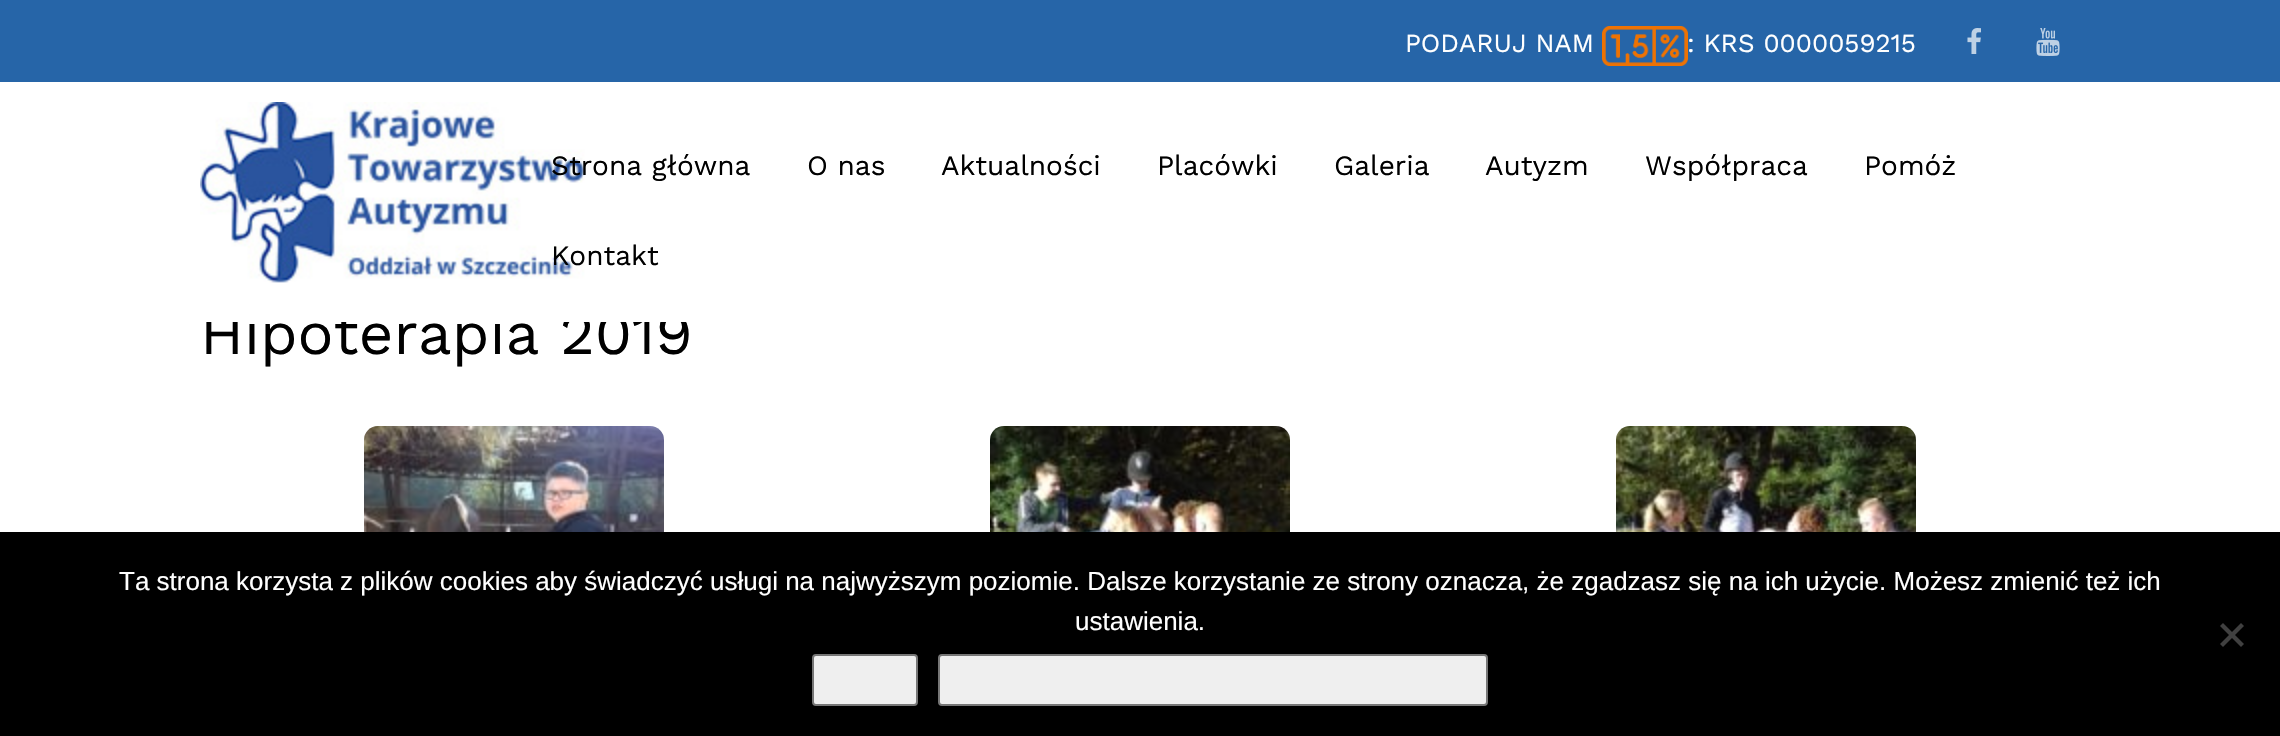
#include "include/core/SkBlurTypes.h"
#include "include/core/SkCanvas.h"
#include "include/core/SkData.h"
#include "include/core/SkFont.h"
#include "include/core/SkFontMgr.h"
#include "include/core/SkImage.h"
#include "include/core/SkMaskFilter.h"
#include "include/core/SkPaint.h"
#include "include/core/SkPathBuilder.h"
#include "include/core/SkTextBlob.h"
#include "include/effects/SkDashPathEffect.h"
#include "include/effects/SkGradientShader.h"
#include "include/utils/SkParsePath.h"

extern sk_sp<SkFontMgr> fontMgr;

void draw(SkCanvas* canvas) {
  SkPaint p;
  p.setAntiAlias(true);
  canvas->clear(SK_ColorWHITE);
  p.setColor(SkColorSetRGB(38, 101, 168));
  canvas->drawRect(SkRect::MakeLTRB(0, 0, 2280, 82), p);
  canvas->drawImageRect(SkImages::DeferredFromEncodedData(SkData::MakeFromFileName("images/1.png")), SkRect::MakeLTRB(1602, 26, 1688, 66), SkSamplingOptions());
  canvas->drawImageRect(SkImages::DeferredFromEncodedData(SkData::MakeFromFileName("images/2.png")), SkRect::MakeLTRB(1967, 28, 1981, 54), SkSamplingOptions());
  canvas->drawImageRect(SkImages::DeferredFromEncodedData(SkData::MakeFromFileName("images/3.png")), SkRect::MakeLTRB(2036, 28, 2060, 56), SkSamplingOptions());
  canvas->drawImageRect(SkImages::DeferredFromEncodedData(SkData::MakeFromFileName("images/4.png")), SkRect::MakeLTRB(200, 102, 585, 283), SkSamplingOptions());
  canvas->drawImageRect(SkImages::DeferredFromEncodedData(SkData::MakeFromFileName("images/5.png")), SkRect::MakeLTRB(364, 426, 664, 532), SkSamplingOptions());
  canvas->drawImageRect(SkImages::DeferredFromEncodedData(SkData::MakeFromFileName("images/6.png")), SkRect::MakeLTRB(990, 426, 1290, 532), SkSamplingOptions());
  canvas->drawImageRect(SkImages::DeferredFromEncodedData(SkData::MakeFromFileName("images/7.png")), SkRect::MakeLTRB(1616, 426, 1916, 532), SkSamplingOptions());
  p.setColor(SK_ColorBLACK);
  canvas->drawRect(SkRect::MakeLTRB(0, 532, 2280, 736), p);
  p.setColor(SkColorSetRGB(64, 64, 64));
  canvas->drawPath(SkPathBuilder().moveTo(2241, 623).lineTo(2244, 626).lineTo(2223, 647).lineTo(2220, 644).close().detach(), p);
  canvas->drawPath(SkPathBuilder().moveTo(2220, 626).lineTo(2223, 623).lineTo(2244, 644).lineTo(2241, 647).close().detach(), p);
  p.setColor(SkColorSetRGB(239, 239, 239));
  canvas->drawRoundRect(SkRect::MakeLTRB(813, 655, 917, 705), 3, 3, p);
  p.setStyle(SkPaint::kStroke_Style);
  p.setStrokeWidth(2);
  p.setColor(SkColorSetRGB(118, 118, 118));
  canvas->drawRoundRect(SkRect::MakeLTRB(813, 655, 917, 705), 3, 3, p);
  p.setStyle(SkPaint::kFill_Style);
  p.setColor(SkColorSetRGB(239, 239, 239));
  canvas->drawRoundRect(SkRect::MakeLTRB(939, 655, 1487, 705), 3, 3, p);
  p.setStyle(SkPaint::kStroke_Style);
  p.setColor(SkColorSetRGB(118, 118, 118));
  canvas->drawRoundRect(SkRect::MakeLTRB(939, 655, 1487, 705), 3, 3, p);
  SkFont font1(fontMgr->matchFamilyStyle("Work Sans", SkFontStyle::Normal()), 26);
  font1.setSubpixel(true);
  p.setStyle(SkPaint::kFill_Style);
  p.setColor(SK_ColorWHITE);
  canvas->drawString("PODARUJ NAM", 1405, 52, font1, p);
  canvas->drawString(": KRS 0000059215", 1687, 52, font1, p);
  SkFont font2(fontMgr->matchFamilyStyle("Work Sans", SkFontStyle::Normal()), 28);
  font2.setSubpixel(true);
  p.setColor(SK_ColorBLACK);
  canvas->drawString("Strona główna", 551, 175, font2, p);
  canvas->drawString("O nas", 807, 175, font2, p);
  canvas->drawString("Aktualności", 941, 175, font2, p);
  canvas->drawString("Placówki", 1157, 175, font2, p);
  canvas->drawString("Galeria", 1334, 175, font2, p);
  canvas->drawString("Autyzm", 1485, 175, font2, p);
  canvas->drawString("Współpraca", 1645, 175, font2, p);
  canvas->drawString("Pomóż", 1864, 175, font2, p);
  canvas->drawString("Kontakt", 551, 265, font2, p);
  SkFont font3(fontMgr->matchFamilyStyle("Work Sans", SkFontStyle::Normal()), 60);
  font3.setSubpixel(true);
  canvas->drawString("Hipoterapia 2019", 200, 354, font3, p);
  p.setColor(SK_ColorWHITE);
  canvas->drawRect(SkRect::MakeLTRB(206, 311, 687, 322), p);
  SkFont font4(fontMgr->matchFamilyStyle("Liberation Sans", SkFontStyle::Normal()), 26);
  font4.setSubpixel(true);
  canvas->drawString("Ta strona korzysta z plików cookies aby świadczyć usługi na najwyższym poziomie. Dalsze korzystanie ze strony oznacza, że zgadzasz się na ich użycie. Możesz zmienić też ich", 119, 590, font4, p);
  canvas->drawString("ustawienia.", 1075, 630, font4, p);
}
